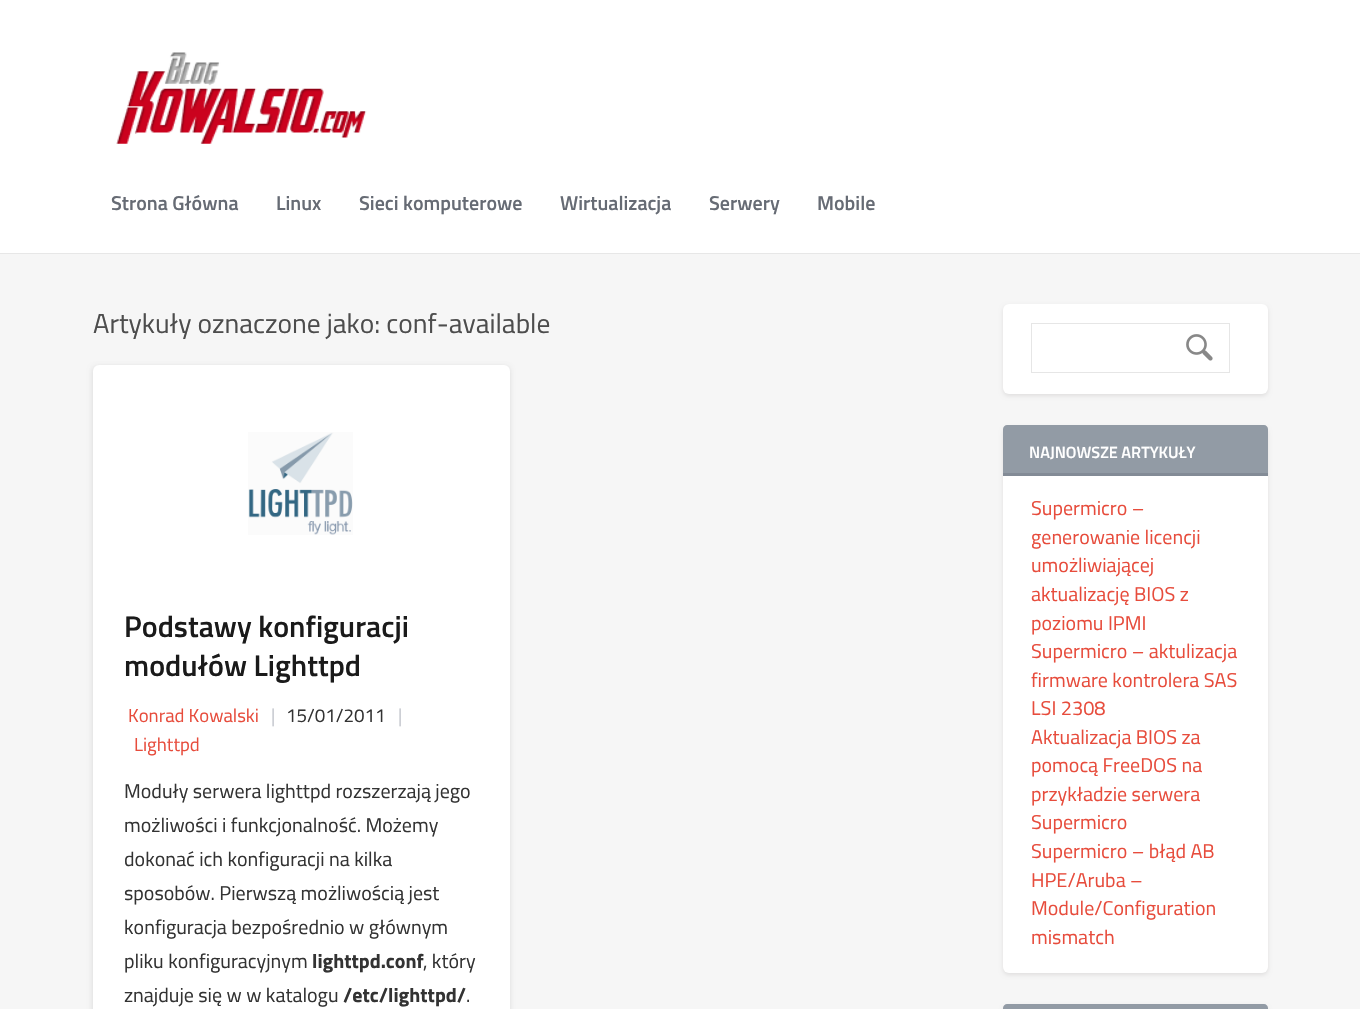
#include "include/core/SkBlurTypes.h"
#include "include/core/SkCanvas.h"
#include "include/core/SkData.h"
#include "include/core/SkFont.h"
#include "include/core/SkFontMgr.h"
#include "include/core/SkImage.h"
#include "include/core/SkMaskFilter.h"
#include "include/core/SkPaint.h"
#include "include/core/SkPathBuilder.h"
#include "include/core/SkTextBlob.h"
#include "include/effects/SkDashPathEffect.h"
#include "include/effects/SkGradientShader.h"
#include "include/utils/SkParsePath.h"

extern sk_sp<SkFontMgr> fontMgr;

void draw(SkCanvas* canvas) {
  SkPaint p;
  p.setAntiAlias(true);
  canvas->clear(SkColorSetRGB(246, 246, 246));
  p.setColor(SK_ColorWHITE);
  canvas->drawRect(SkRect::MakeLTRB(0, 0, 1360, 253), p);
  p.setColor(SkColorSetRGB(231, 231, 231));
  canvas->drawRect(SkRect::MakeLTRB(0, 253, 1360, 254), p);
  canvas->drawImageRect(SkImages::DeferredFromEncodedData(SkData::MakeFromFileName("images/1.png")), SkRect::MakeLTRB(116, 52, 367, 144), SkSamplingOptions());
  p.setColor(SkColorSetARGB(13, 0, 0, 0));
  p.setMaskFilter(SkMaskFilter::MakeBlur(kNormal_SkBlurStyle, 2));
  canvas->drawRoundRect(SkRect::MakeLTRB(91, 366, 509, 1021), 6, 6, p);
  p.setMaskFilter(nullptr);
  p.setMaskFilter(SkMaskFilter::MakeBlur(kNormal_SkBlurStyle, 2));
  canvas->drawRoundRect(SkRect::MakeLTRB(94, 366, 511, 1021), 6, 6, p);
  p.setMaskFilter(nullptr);
  p.setColor(SK_ColorWHITE);
  canvas->drawRoundRect(SkRect::MakeLTRB(93, 365, 510, 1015), 6, 6, p);
  canvas->drawImageRect(SkImages::DeferredFromEncodedData(SkData::MakeFromFileName("images/2.png")), SkRect::MakeLTRB(248, 432, 353, 535), SkSamplingOptions());
  p.setColor(SkColorSetRGB(224, 223, 223));
  p.setMaskFilter(SkMaskFilter::MakeBlur(kNormal_SkBlurStyle, 2));
  canvas->drawRoundRect(SkRect::MakeLTRB(1003, 306, 1268, 396), 6, 6, p);
  p.setMaskFilter(nullptr);
  p.setColor(SK_ColorWHITE);
  canvas->drawRoundRect(SkRect::MakeLTRB(1003, 304, 1268, 394), 6, 6, p);
  p.setStyle(SkPaint::kStroke_Style);
  p.setStrokeWidth(1);
  p.setColor(SkColorSetRGB(230, 230, 230));
  canvas->drawRect(SkRect::MakeLTRB(1031.5f, 323.5f, 1229.5f, 372.5f), p);
  canvas->drawImageRect(SkImages::DeferredFromEncodedData(SkData::MakeFromFileName("images/3.png")), SkRect::MakeLTRB(1186, 334, 1213, 361), SkSamplingOptions());
  p.setStyle(SkPaint::kFill_Style);
  p.setColor(SkColorSetRGB(224, 223, 223));
  p.setMaskFilter(SkMaskFilter::MakeBlur(kNormal_SkBlurStyle, 2));
  canvas->drawRoundRect(SkRect::MakeLTRB(1003, 428, 1268, 975), 6, 6, p);
  p.setMaskFilter(nullptr);
  p.setColor(SK_ColorWHITE);
  canvas->drawRoundRect(SkRect::MakeLTRB(1003, 425, 1268, 973), 6, 6, p);
  p.setColor(SkColorSetRGB(146, 155, 165));
  canvas->drawPath(SkPathBuilder().moveTo(1007, 425).lineTo(1264, 425).cubicTo(1266, 425, 1268, 427, 1268, 429).lineTo(1268, 475).lineTo(1003, 475).lineTo(1003, 429).cubicTo(1003, 427, 1005, 425, 1007, 425).close().detach(), p);
  p.setColor(SkColorSetRGB(131, 139, 150));
  canvas->drawRect(SkRect::MakeLTRB(1003, 473, 1268, 476), p);
  p.setColor(SkColorSetRGB(224, 223, 223));
  p.setMaskFilter(SkMaskFilter::MakeBlur(kNormal_SkBlurStyle, 2));
  canvas->drawRoundRect(SkRect::MakeLTRB(1003, 1006, 1268, 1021), 6, 6, p);
  p.setMaskFilter(nullptr);
  p.setColor(SkColorSetRGB(146, 155, 165));
  canvas->drawPath(SkPathBuilder().moveTo(1007, 1004).lineTo(1264, 1004).cubicTo(1266, 1004, 1268, 1006, 1268, 1008).lineTo(1268, 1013).lineTo(1003, 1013).lineTo(1003, 1008).cubicTo(1003, 1006, 1005, 1004, 1007, 1004).close().detach(), p);
  SkFont font1(fontMgr->matchFamilyStyle("Titillium Web", SkFontStyle(600, SkFontStyle::kNormal_Width, SkFontStyle::kUpright_Slant)), 20);
  font1.setSubpixel(true);
  p.setColor(SkColorSetRGB(102, 107, 116));
  canvas->drawString("Strona Główna", 111, 210, font1, p);
  canvas->drawString("Linux", 276, 210, font1, p);
  canvas->drawString("Sieci komputerowe", 359, 210, font1, p);
  canvas->drawString("Wirtualizacja", 560, 210, font1, p);
  canvas->drawString("Serwery", 709, 210, font1, p);
  canvas->drawString("Mobile", 817, 210, font1, p);
  SkFont font2(fontMgr->matchFamilyStyle("Titillium Web", SkFontStyle::Normal()), 27.5f);
  font2.setSubpixel(true);
  p.setColor(SkColorSetRGB(77, 77, 77));
  canvas->drawString("Artykuły oznaczone jako: conf-available", 93, 333, font2, p);
  SkFont font3(fontMgr->matchFamilyStyle("Titillium Web", SkFontStyle(600, SkFontStyle::kNormal_Width, SkFontStyle::kUpright_Slant)), 30);
  font3.setSubpixel(true);
  p.setColor(SkColorSetRGB(26, 26, 26));
  canvas->drawString("Podstawy konfiguracji", 124, 637, font3, p);
  canvas->drawString("modułów Lighttpd", 124, 676, font3, p);
  SkFont font4(fontMgr->matchFamilyStyle("Titillium Web", SkFontStyle::Normal()), 18.75f);
  font4.setSubpixel(true);
  p.setColor(SkColorSetRGB(231, 76, 60));
  canvas->drawString("Konrad Kowalski", 128, 722, font4, p);
  p.setColor(SkColorSetRGB(199, 202, 208));
  canvas->drawString("|", 271, 722, font4, p);
  p.setColor(SkColorSetRGB(51, 51, 51));
  canvas->drawString("15/01/2011", 286, 722, font4, p);
  p.setColor(SkColorSetRGB(199, 202, 208));
  canvas->drawString("|", 398, 722, font4, p);
  p.setColor(SkColorSetRGB(231, 76, 60));
  canvas->drawString("Lighttpd", 134, 751, font4, p);
  SkFont font5(fontMgr->matchFamilyStyle("Titillium Web", SkFontStyle::Normal()), 20);
  font5.setSubpixel(true);
  p.setColor(SkColorSetRGB(51, 51, 51));
  canvas->drawString("Moduły serwera lighttpd rozszerzają jego", 124, 798, font5, p);
  canvas->drawString("możliwości i funkcjonalność. Możemy", 124, 832, font5, p);
  canvas->drawString("dokonać ich konfiguracji na kilka", 124, 866, font5, p);
  canvas->drawString("sposobów. Pierwszą możliwością jest", 124, 900, font5, p);
  canvas->drawString("konfiguracja bezpośrednio w głównym", 124, 934, font5, p);
  canvas->drawString("pliku konfiguracyjnym", 124, 968, font5, p);
  SkFont font6(fontMgr->matchFamilyStyle("Titillium Web", SkFontStyle::Bold()), 20);
  font6.setSubpixel(true);
  canvas->drawString("lighttpd.conf", 312, 968, font6, p);
  canvas->drawString(", który", 423, 968, font5, p);
  canvas->drawString("znajduje się w w katalogu", 124, 1002, font5, p);
  canvas->drawString("/etc/lighttpd/", 343, 1002, font6, p);
  canvas->drawString(".", 466, 1002, font5, p);
  SkFont font7(fontMgr->matchFamilyStyle("Titillium Web", SkFontStyle(600, SkFontStyle::kNormal_Width, SkFontStyle::kUpright_Slant)), 16.25f);
  font7.setSubpixel(true);
  p.setColor(SK_ColorWHITE);
  canvas->drawString("NAJNOWSZE ARTYKUŁY", 1029, 458, font7, p);
  p.setColor(SkColorSetRGB(231, 76, 60));
  canvas->drawString("Supermicro –", 1031, 515, font5, p);
  canvas->drawString("generowanie licencji", 1031, 544, font5, p);
  canvas->drawString("umożliwiającej", 1031, 572, font5, p);
  canvas->drawString("aktualizację BIOS z", 1031, 601, font5, p);
  canvas->drawString("poziomu IPMI", 1031, 630, font5, p);
  canvas->drawString("Supermicro – aktulizacja", 1031, 658, font5, p);
  canvas->drawString("firmware kontrolera SAS", 1031, 687, font5, p);
  canvas->drawString("LSI 2308", 1031, 715, font5, p);
  canvas->drawString("Aktualizacja BIOS za", 1031, 744, font5, p);
  canvas->drawString("pomocą FreeDOS na", 1031, 772, font5, p);
  canvas->drawString("przykładzie serwera", 1031, 801, font5, p);
  canvas->drawString("Supermicro", 1031, 829, font5, p);
  canvas->drawString("Supermicro – błąd AB", 1031, 858, font5, p);
  canvas->drawString("HPE/Aruba –", 1031, 887, font5, p);
  canvas->drawString("Module/Configuration", 1031, 915, font5, p);
  canvas->drawString("mismatch", 1031, 944, font5, p);
}
